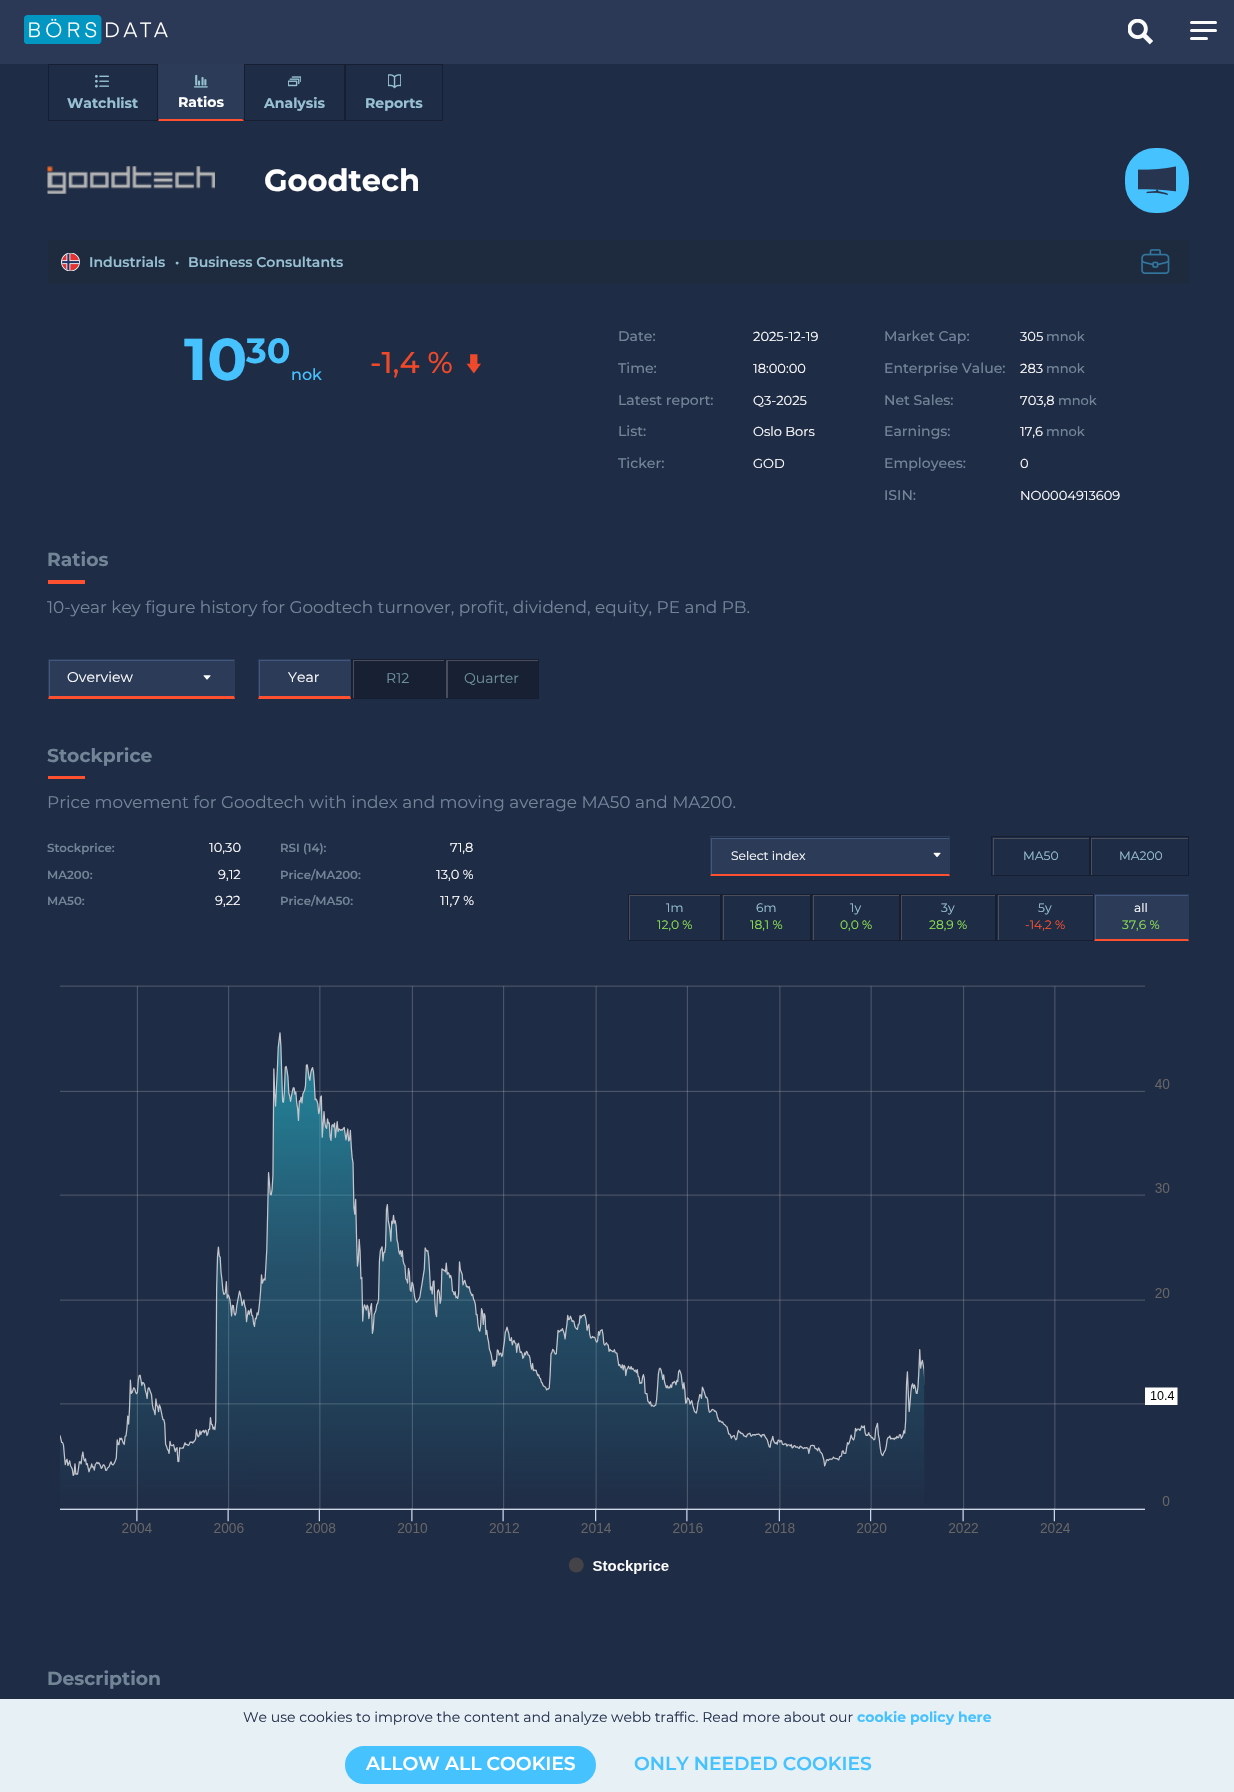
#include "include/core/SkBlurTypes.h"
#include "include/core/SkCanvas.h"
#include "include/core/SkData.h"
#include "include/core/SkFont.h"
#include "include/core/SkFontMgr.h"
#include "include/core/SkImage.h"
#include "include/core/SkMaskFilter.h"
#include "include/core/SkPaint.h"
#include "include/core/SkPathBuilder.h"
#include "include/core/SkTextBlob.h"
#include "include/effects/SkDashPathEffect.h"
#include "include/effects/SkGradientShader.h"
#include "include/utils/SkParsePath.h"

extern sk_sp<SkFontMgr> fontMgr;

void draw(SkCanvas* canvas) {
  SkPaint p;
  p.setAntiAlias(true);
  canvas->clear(SkColorSetRGB(31, 44, 69));
  p.setColor(SkColorSetRGB(44, 57, 86));
  canvas->drawRect(SkRect::MakeLTRB(0, 0, 1234, 64), p);
  canvas->drawImageRect(SkImages::DeferredFromEncodedData(SkData::MakeFromFileName("images/1.png")), SkRect::MakeLTRB(24, 15, 168, 44), SkSamplingOptions());
  canvas->drawImageRect(SkImages::DeferredFromEncodedData(SkData::MakeFromFileName("images/2.png")), SkRect::MakeLTRB(1128, 19, 1153, 45), SkSamplingOptions());
  p.setColor(SkColorSetRGB(251, 251, 251));
  canvas->drawRoundRect(SkRect::MakeLTRB(1190, 21, 1217, 24), 1.5f, 1.5f, p);
  canvas->drawRoundRect(SkRect::MakeLTRB(1190, 29, 1217, 32), 1.5f, 1.5f, p);
  canvas->drawRoundRect(SkRect::MakeLTRB(1190, 37, 1208, 40), 1.5f, 1.5f, p);
  p.setStyle(SkPaint::kStroke_Style);
  p.setStrokeWidth(1);
  p.setColor(SkColorSetRGB(21, 31, 49));
  canvas->drawRect(SkRect::MakeLTRB(48.5f, 64.5f, 157.5f, 120.5f), p);
  canvas->drawImageRect(SkImages::DeferredFromEncodedData(SkData::MakeFromFileName("images/3.png")), SkRect::MakeLTRB(95, 74, 109, 88), SkSamplingOptions());
  p.setStyle(SkPaint::kFill_Style);
  p.setColor(SkColorSetRGB(44, 60, 88));
  canvas->drawRect(SkRect::MakeLTRB(159, 65, 242, 119), p);
  canvas->drawRect(SkRect::MakeLTRB(158, 64, 244, 65), p);
  canvas->drawPath(SkPathBuilder().moveTo(244, 64).lineTo(244, 121).lineTo(242, 119).lineTo(242, 65).close().detach(), p);
  p.setColor(SkColorSetRGB(255, 80, 47));
  canvas->drawPath(SkPathBuilder().moveTo(244, 121).lineTo(158, 121).lineTo(159, 119).lineTo(242, 119).close().detach(), p);
  p.setColor(SkColorSetRGB(44, 60, 88));
  canvas->drawPath(SkPathBuilder().moveTo(158, 121).lineTo(158, 64).lineTo(159, 65).lineTo(159, 119).close().detach(), p);
  canvas->drawImageRect(SkImages::DeferredFromEncodedData(SkData::MakeFromFileName("images/4.png")), SkRect::MakeLTRB(194, 74, 208, 88), SkSamplingOptions());
  p.setStyle(SkPaint::kStroke_Style);
  p.setColor(SkColorSetRGB(21, 31, 49));
  canvas->drawRect(SkRect::MakeLTRB(244.5f, 64.5f, 344.5f, 120.5f), p);
  canvas->drawImageRect(SkImages::DeferredFromEncodedData(SkData::MakeFromFileName("images/5.png")), SkRect::MakeLTRB(288, 76, 301, 87), SkSamplingOptions());
  canvas->drawRect(SkRect::MakeLTRB(345.5f, 64.5f, 442.5f, 120.5f), p);
  canvas->drawImageRect(SkImages::DeferredFromEncodedData(SkData::MakeFromFileName("images/6.png")), SkRect::MakeLTRB(388, 74, 401, 89), SkSamplingOptions());
  canvas->drawImageRect(SkImages::DeferredFromEncodedData(SkData::MakeFromFileName("images/7.png")), SkRect::MakeLTRB(47, 166, 215, 194), SkSamplingOptions());
  p.setStyle(SkPaint::kFill_Style);
  p.setColor(SkColorSetRGB(70, 194, 255));
  canvas->drawRoundRect(SkRect::MakeLTRB(1126.5f, 149.5f, 1187.5f, 211.5f), 28.5f, 28.5f, p);
  p.setStyle(SkPaint::kStroke_Style);
  p.setStrokeWidth(3);
  canvas->drawRoundRect(SkRect::MakeLTRB(1126.5f, 149.5f, 1187.5f, 211.5f), 28.5f, 28.5f, p);
  canvas->drawImageRect(SkImages::DeferredFromEncodedData(SkData::MakeFromFileName("images/8.png")), SkRect::MakeLTRB(1138, 166, 1176, 195), SkSamplingOptions());
  p.setStyle(SkPaint::kFill_Style);
  p.setColor(SkColorSetRGB(30, 42, 61));
  canvas->drawRect(SkRect::MakeLTRB(48, 240, 1189, 284), p);
  canvas->drawImageRect(SkImages::DeferredFromEncodedData(SkData::MakeFromFileName("images/9.png")), SkRect::MakeLTRB(61, 253, 80, 271), SkSamplingOptions());
  canvas->drawImageRect(SkImages::DeferredFromEncodedData(SkData::MakeFromFileName("images/10.png")), SkRect::MakeLTRB(1141, 249, 1170, 274), SkSamplingOptions());
  canvas->drawImageRect(SkImages::DeferredFromEncodedData(SkData::MakeFromFileName("images/11.png")), SkRect::MakeLTRB(466, 354, 481, 374), SkSamplingOptions());
  p.setColor(SkColorSetRGB(255, 80, 47));
  canvas->drawRect(SkRect::MakeLTRB(48, 580, 85, 584), p);
  p.setColor(SkColorSetRGB(44, 60, 88));
  canvas->drawRect(SkRect::MakeLTRB(50, 661, 234, 696), p);
  canvas->save();
  canvas->clipRect(SkRect::MakeLTRB(49, 660, 234, 696));
  p.setColor(SkColorSetRGB(64, 88, 128));
  canvas->drawPath(SkPathBuilder(SkPathFillType::kEvenOdd).moveTo(-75, 536).lineTo(358, 536).lineTo(358, 820).lineTo(-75, 820).close().moveTo(50, 661).lineTo(235, 661).lineTo(235, 698).lineTo(50, 698).close().detach(), p);
  canvas->restore();
  p.setColor(SkColorSetRGB(44, 60, 88));
  canvas->drawRect(SkRect::MakeLTRB(48, 659, 235, 660), p);
  canvas->drawPath(SkPathBuilder().moveTo(235, 659).lineTo(235, 699).lineTo(234, 696).lineTo(234, 660).close().detach(), p);
  p.setColor(SkColorSetRGB(255, 80, 47));
  canvas->drawPath(SkPathBuilder().moveTo(235, 699).lineTo(48, 699).lineTo(49, 696).lineTo(234, 696).close().detach(), p);
  p.setColor(SkColorSetRGB(44, 60, 88));
  canvas->drawPath(SkPathBuilder().moveTo(48, 699).lineTo(48, 659).lineTo(49, 660).lineTo(49, 696).close().detach(), p);
  canvas->drawImageRect(SkImages::DeferredFromEncodedData(SkData::MakeFromFileName("images/12.png")), SkRect::MakeLTRB(203, 675, 211, 680), SkSamplingOptions());
  canvas->drawRect(SkRect::MakeLTRB(260, 661, 350, 696), p);
  canvas->save();
  canvas->clipRect(SkRect::MakeLTRB(259, 660, 350, 696));
  p.setColor(SkColorSetRGB(64, 88, 128));
  canvas->drawPath(SkPathBuilder(SkPathFillType::kEvenOdd).moveTo(135, 536).lineTo(474, 536).lineTo(474, 820).lineTo(135, 820).close().moveTo(260, 661).lineTo(351, 661).lineTo(351, 698).lineTo(260, 698).close().detach(), p);
  canvas->restore();
  p.setColor(SkColorSetRGB(44, 60, 88));
  canvas->drawRect(SkRect::MakeLTRB(258, 659, 351, 660), p);
  canvas->drawPath(SkPathBuilder().moveTo(351, 659).lineTo(351, 699).lineTo(350, 696).lineTo(350, 660).close().detach(), p);
  p.setColor(SkColorSetRGB(255, 80, 47));
  canvas->drawPath(SkPathBuilder().moveTo(351, 699).lineTo(258, 699).lineTo(259, 696).lineTo(350, 696).close().detach(), p);
  p.setColor(SkColorSetRGB(44, 60, 88));
  canvas->drawPath(SkPathBuilder().moveTo(258, 699).lineTo(258, 659).lineTo(259, 660).lineTo(259, 696).close().detach(), p);
  p.setColor(SkColorSetRGB(23, 33, 51));
  canvas->drawRect(SkRect::MakeLTRB(352, 660, 444, 698), p);
  canvas->save();
  canvas->clipRect(SkRect::MakeLTRB(353, 660, 444, 698));
  p.setColor(SkColorSetRGB(75, 78, 90));
  canvas->drawPath(SkPathBuilder(SkPathFillType::kEvenOdd).moveTo(229, 536).lineTo(568, 536).lineTo(568, 821).lineTo(229, 821).close().moveTo(354, 661).lineTo(445, 661).lineTo(445, 699).lineTo(354, 699).close().detach(), p);
  canvas->restore();
  p.setStyle(SkPaint::kStroke_Style);
  p.setStrokeWidth(1);
  p.setColor(SkColorSetRGB(21, 31, 49));
  canvas->drawRect(SkRect::MakeLTRB(351.5f, 659.5f, 444.5f, 698.5f), p);
  p.setStyle(SkPaint::kFill_Style);
  p.setColor(SkColorSetRGB(23, 33, 51));
  canvas->drawRect(SkRect::MakeLTRB(448, 661, 538, 698), p);
  canvas->save();
  canvas->clipRect(SkRect::MakeLTRB(446, 660, 538, 698));
  p.setColor(SkColorSetRGB(75, 78, 90));
  canvas->drawPath(SkPathBuilder(SkPathFillType::kEvenOdd).moveTo(322, 536).lineTo(661, 536).lineTo(661, 821).lineTo(322, 821).close().moveTo(448, 661).lineTo(539, 661).lineTo(539, 699).lineTo(448, 699).close().detach(), p);
  canvas->restore();
  p.setStyle(SkPaint::kStroke_Style);
  p.setColor(SkColorSetRGB(21, 31, 49));
  canvas->drawRect(SkRect::MakeLTRB(445.5f, 659.5f, 538.5f, 698.5f), p);
  p.setStyle(SkPaint::kFill_Style);
  p.setColor(SkColorSetRGB(255, 80, 47));
  canvas->drawRect(SkRect::MakeLTRB(48, 776, 85, 779), p);
  p.setColor(SkColorSetRGB(44, 60, 88));
  canvas->drawRect(SkRect::MakeLTRB(712, 839, 949, 874), p);
  canvas->save();
  canvas->clipRect(SkRect::MakeLTRB(711, 838, 949, 874));
  p.setColor(SkColorSetRGB(64, 88, 128));
  canvas->drawPath(SkPathBuilder(SkPathFillType::kEvenOdd).moveTo(588, 714).lineTo(1072, 714).lineTo(1072, 998).lineTo(588, 998).close().moveTo(712, 839).lineTo(950, 839).lineTo(950, 875).lineTo(712, 875).close().detach(), p);
  canvas->restore();
  p.setColor(SkColorSetRGB(44, 60, 88));
  canvas->drawRect(SkRect::MakeLTRB(710, 836, 950, 837), p);
  canvas->drawPath(SkPathBuilder().moveTo(950, 836).lineTo(950, 876).lineTo(949, 874).lineTo(949, 838).close().detach(), p);
  p.setColor(SkColorSetRGB(255, 80, 47));
  canvas->drawPath(SkPathBuilder().moveTo(950, 876).lineTo(710, 876).lineTo(711, 874).lineTo(949, 874).close().detach(), p);
  p.setColor(SkColorSetRGB(44, 60, 88));
  canvas->drawPath(SkPathBuilder().moveTo(710, 876).lineTo(710, 836).lineTo(711, 838).lineTo(711, 874).close().detach(), p);
  canvas->drawImageRect(SkImages::DeferredFromEncodedData(SkData::MakeFromFileName("images/13.png")), SkRect::MakeLTRB(933, 852, 941, 858), SkSamplingOptions());
  canvas->save();
  canvas->clipRect(SkRect::MakeLTRB(993, 838, 1089, 875));
  p.setColor(SkColorSetRGB(75, 78, 90));
  canvas->drawPath(SkPathBuilder(SkPathFillType::kEvenOdd).moveTo(869, 714).lineTo(1212, 714).lineTo(1212, 999).lineTo(869, 999).close().moveTo(994, 839).lineTo(1090, 839).lineTo(1090, 876).lineTo(994, 876).close().detach(), p);
  canvas->restore();
  p.setStyle(SkPaint::kStroke_Style);
  p.setColor(SkColorSetRGB(21, 31, 49));
  canvas->drawRect(SkRect::MakeLTRB(991.5f, 836.5f, 1089.5f, 875.5f), p);
  canvas->save();
  canvas->clipRect(SkRect::MakeLTRB(1091, 838, 1188, 875));
  p.setStyle(SkPaint::kFill_Style);
  p.setColor(SkColorSetRGB(75, 78, 90));
  canvas->drawPath(SkPathBuilder(SkPathFillType::kEvenOdd).moveTo(968, 714).lineTo(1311, 714).lineTo(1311, 999).lineTo(968, 999).close().moveTo(1092, 839).lineTo(1189, 839).lineTo(1189, 876).lineTo(1092, 876).close().detach(), p);
  canvas->restore();
  p.setStyle(SkPaint::kStroke_Style);
  p.setColor(SkColorSetRGB(21, 31, 49));
  canvas->drawRect(SkRect::MakeLTRB(1090.5f, 836.5f, 1188.5f, 875.5f), p);
  canvas->save();
  canvas->clipRect(SkRect::MakeLTRB(629, 895, 720, 940));
  p.setStyle(SkPaint::kFill_Style);
  p.setColor(SkColorSetRGB(75, 78, 90));
  canvas->drawPath(SkPathBuilder(SkPathFillType::kEvenOdd).moveTo(505, 771).lineTo(844, 771).lineTo(844, 1064).lineTo(505, 1064).close().moveTo(630, 896).lineTo(721, 896).lineTo(721, 941).lineTo(630, 941).close().detach(), p);
  canvas->restore();
  p.setStyle(SkPaint::kStroke_Style);
  p.setColor(SkColorSetRGB(21, 31, 49));
  canvas->drawRect(SkRect::MakeLTRB(628.5f, 894.5f, 720.5f, 940.5f), p);
  canvas->save();
  canvas->clipRect(SkRect::MakeLTRB(723, 895, 810, 940));
  p.setStyle(SkPaint::kFill_Style);
  p.setColor(SkColorSetRGB(75, 78, 90));
  canvas->drawPath(SkPathBuilder(SkPathFillType::kEvenOdd).moveTo(599, 771).lineTo(934, 771).lineTo(934, 1064).lineTo(599, 1064).close().moveTo(724, 896).lineTo(811, 896).lineTo(811, 941).lineTo(724, 941).close().detach(), p);
  canvas->restore();
  p.setStyle(SkPaint::kStroke_Style);
  p.setColor(SkColorSetRGB(21, 31, 49));
  canvas->drawRect(SkRect::MakeLTRB(721.5f, 894.5f, 810.5f, 940.5f), p);
  canvas->save();
  canvas->clipRect(SkRect::MakeLTRB(813, 895, 899, 940));
  p.setStyle(SkPaint::kFill_Style);
  p.setColor(SkColorSetRGB(75, 78, 90));
  canvas->drawPath(SkPathBuilder(SkPathFillType::kEvenOdd).moveTo(689, 771).lineTo(1022, 771).lineTo(1022, 1064).lineTo(689, 1064).close().moveTo(814, 896).lineTo(900, 896).lineTo(900, 941).lineTo(814, 941).close().detach(), p);
  canvas->restore();
  p.setStyle(SkPaint::kStroke_Style);
  p.setColor(SkColorSetRGB(21, 31, 49));
  canvas->drawRect(SkRect::MakeLTRB(811.5f, 894.5f, 899.5f, 940.5f), p);
  canvas->save();
  canvas->clipRect(SkRect::MakeLTRB(901, 895, 995, 940));
  p.setStyle(SkPaint::kFill_Style);
  p.setColor(SkColorSetRGB(75, 78, 90));
  canvas->drawPath(SkPathBuilder(SkPathFillType::kEvenOdd).moveTo(778, 771).lineTo(1119, 771).lineTo(1119, 1064).lineTo(778, 1064).close().moveTo(902, 896).lineTo(996, 896).lineTo(996, 941).lineTo(902, 941).close().detach(), p);
  canvas->restore();
  p.setStyle(SkPaint::kStroke_Style);
  p.setColor(SkColorSetRGB(21, 31, 49));
  canvas->drawRect(SkRect::MakeLTRB(900.5f, 894.5f, 995.5f, 940.5f), p);
  canvas->save();
  canvas->clipRect(SkRect::MakeLTRB(998, 895, 1093, 940));
  p.setStyle(SkPaint::kFill_Style);
  p.setColor(SkColorSetRGB(75, 78, 90));
  canvas->drawPath(SkPathBuilder(SkPathFillType::kEvenOdd).moveTo(874, 771).lineTo(1216, 771).lineTo(1216, 1064).lineTo(874, 1064).close().moveTo(999, 896).lineTo(1094, 896).lineTo(1094, 941).lineTo(999, 941).close().detach(), p);
  canvas->restore();
  p.setStyle(SkPaint::kStroke_Style);
  p.setColor(SkColorSetRGB(21, 31, 49));
  canvas->drawRect(SkRect::MakeLTRB(996.5f, 894.5f, 1093.5f, 940.5f), p);
  p.setStyle(SkPaint::kFill_Style);
  p.setColor(SkColorSetRGB(44, 60, 88));
  canvas->drawRect(SkRect::MakeLTRB(1096, 896, 1188, 939), p);
  canvas->save();
  canvas->clipRect(SkRect::MakeLTRB(1095, 895, 1188, 939));
  p.setColor(SkColorSetRGB(64, 88, 128));
  canvas->drawPath(SkPathBuilder(SkPathFillType::kEvenOdd).moveTo(971, 771).lineTo(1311, 771).lineTo(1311, 1062).lineTo(971, 1062).close().moveTo(1096, 896).lineTo(1189, 896).lineTo(1189, 940).lineTo(1096, 940).close().detach(), p);
  canvas->restore();
  p.setColor(SkColorSetRGB(44, 60, 88));
  canvas->drawRect(SkRect::MakeLTRB(1094, 894, 1189, 895), p);
  canvas->drawPath(SkPathBuilder().moveTo(1189, 894).lineTo(1189, 941).lineTo(1188, 939).lineTo(1188, 895).close().detach(), p);
  p.setColor(SkColorSetRGB(255, 80, 47));
  canvas->drawPath(SkPathBuilder().moveTo(1189, 941).lineTo(1094, 941).lineTo(1095, 939).lineTo(1188, 939).close().detach(), p);
  p.setColor(SkColorSetRGB(44, 60, 88));
  canvas->drawPath(SkPathBuilder().moveTo(1094, 941).lineTo(1094, 894).lineTo(1095, 895).lineTo(1095, 939).close().detach(), p);
  canvas->drawImageRect(SkImages::DeferredFromEncodedData(SkData::MakeFromFileName("images/14.png")), SkRect::MakeLTRB(60, 985, 1178, 1574), SkSamplingOptions());
  p.setColor(SkColorSetRGB(231, 240, 245));
  canvas->drawRect(SkRect::MakeLTRB(0, 1699, 1234, 1792), p);
  p.setColor(SkColorSetRGB(70, 194, 255));
  canvas->drawRoundRect(SkRect::MakeLTRB(346.5f, 1747.5f, 594.5f, 1782.5f), 17.5f, 17.5f, p);
  p.setStyle(SkPaint::kStroke_Style);
  p.setStrokeWidth(3);
  canvas->drawRoundRect(SkRect::MakeLTRB(346.5f, 1747.5f, 594.5f, 1782.5f), 17.5f, 17.5f, p);
  SkFont font1(fontMgr->matchFamilyStyle("Montserrat", SkFontStyle::Bold()), 14.05f);
  font1.setSubpixel(true);
  p.setStyle(SkPaint::kFill_Style);
  p.setColor(SkColorSetRGB(151, 193, 211));
  canvas->drawString("Watchlist", 67, 108, font1, p);
  p.setColor(SK_ColorWHITE);
  canvas->drawString("Ratios", 178, 107, font1, p);
  p.setColor(SkColorSetRGB(151, 193, 211));
  canvas->drawString("Analysis", 264, 108, font1, p);
  canvas->drawString("Reports", 365, 108, font1, p);
  SkFont font2(fontMgr->matchFamilyStyle("Montserrat", SkFontStyle::Bold()), 30.5f);
  font2.setSubpixel(true);
  p.setColor(SK_ColorWHITE);
  canvas->drawString("Goodtech", 264, 191, font2, p);
  SkFont font3(fontMgr->matchFamilyStyle("Montserrat", SkFontStyle(600, SkFontStyle::kNormal_Width, SkFontStyle::kUpright_Slant)), 14.05f);
  font3.setSubpixel(true);
  p.setColor(SkColorSetRGB(151, 193, 211));
  canvas->drawString("Industrials", 89, 267, font3, p);
  canvas->drawString("·", 175, 267, font1, p);
  canvas->drawString("Business Consultants", 188, 267, font3, p);
  SkFont font4(fontMgr->matchFamilyStyle("Montserrat", SkFontStyle::Bold()), 59);
  font4.setSubpixel(true);
  p.setColor(SkColorSetRGB(70, 194, 255));
  canvas->drawString("10", 184, 380, font4, p);
  SkFont font5(fontMgr->matchFamilyStyle("Montserrat", SkFontStyle::Bold()), 35);
  font5.setSubpixel(true);
  canvas->drawString("30", 246, 363, font5, p);
  SkFont font6(fontMgr->matchFamilyStyle("Montserrat", SkFontStyle(500, SkFontStyle::kNormal_Width, SkFontStyle::kUpright_Slant)), 16);
  font6.setSubpixel(true);
  canvas->drawString("nok", 291, 380, font6, p);
  SkFont font7(fontMgr->matchFamilyStyle("Montserrat", SkFontStyle(500, SkFontStyle::kNormal_Width, SkFontStyle::kUpright_Slant)), 30);
  font7.setSubpixel(true);
  p.setColor(SkColorSetRGB(239, 73, 41));
  canvas->drawString("-1,4 %", 370, 373, font7, p);
  SkFont font8(fontMgr->matchFamilyStyle("Montserrat", SkFontStyle(500, SkFontStyle::kNormal_Width, SkFontStyle::kUpright_Slant)), 14.05f);
  font8.setSubpixel(true);
  p.setColor(SkColorSetRGB(113, 133, 151));
  canvas->drawString("Date:", 618, 341, font8, p);
  SkFont font9(fontMgr->matchFamilyStyle("Montserrat", SkFontStyle::Normal()), 13);
  font9.setSubpixel(true);
  p.setColor(SK_ColorWHITE);
  canvas->drawString("2025-12-19", 753, 341, font9, p);
  p.setColor(SkColorSetRGB(113, 133, 151));
  canvas->drawString("Time:", 618, 373, font8, p);
  p.setColor(SK_ColorWHITE);
  canvas->drawString("18:00:00", 753, 373, font9, p);
  p.setColor(SkColorSetRGB(113, 133, 151));
  canvas->drawString("Latest report:", 618, 405, font8, p);
  p.setColor(SK_ColorWHITE);
  canvas->drawString("Q3-2025", 753, 405, font9, p);
  p.setColor(SkColorSetRGB(113, 133, 151));
  canvas->drawString("List:", 618, 436, font8, p);
  p.setColor(SK_ColorWHITE);
  canvas->drawString("Oslo Bors", 753, 436, font9, p);
  p.setColor(SkColorSetRGB(113, 133, 151));
  canvas->drawString("Ticker:", 618, 468, font8, p);
  p.setColor(SK_ColorWHITE);
  canvas->drawString("GOD", 753, 468, font9, p);
  p.setColor(SkColorSetRGB(113, 133, 151));
  canvas->drawString("Market Cap:", 884, 341, font8, p);
  p.setColor(SK_ColorWHITE);
  canvas->drawString("305", 1020, 341, font9, p);
  SkFont font10(fontMgr->matchFamilyStyle("Montserrat", SkFontStyle(500, SkFontStyle::kNormal_Width, SkFontStyle::kUpright_Slant)), 13);
  font10.setSubpixel(true);
  p.setColor(SkColorSetRGB(113, 133, 151));
  canvas->drawString("mnok", 1046, 341, font10, p);
  canvas->drawString("Enterprise Value:", 884, 373, font8, p);
  p.setColor(SK_ColorWHITE);
  canvas->drawString("283", 1020, 373, font9, p);
  p.setColor(SkColorSetRGB(113, 133, 151));
  canvas->drawString("mnok", 1046, 373, font10, p);
  canvas->drawString("Net Sales:", 884, 405, font8, p);
  p.setColor(SK_ColorWHITE);
  canvas->drawString("703,8", 1020, 405, font9, p);
  p.setColor(SkColorSetRGB(113, 133, 151));
  canvas->drawString("mnok", 1058, 405, font10, p);
  canvas->drawString("Earnings:", 884, 436, font8, p);
  p.setColor(SK_ColorWHITE);
  canvas->drawString("17,6", 1020, 436, font9, p);
  p.setColor(SkColorSetRGB(113, 133, 151));
  canvas->drawString("mnok", 1046, 436, font10, p);
  canvas->drawString("Employees:", 884, 468, font8, p);
  p.setColor(SK_ColorWHITE);
  canvas->drawString("0", 1020, 468, font9, p);
  p.setColor(SkColorSetRGB(113, 133, 151));
  canvas->drawString("ISIN:", 884, 500, font8, p);
  p.setColor(SK_ColorWHITE);
  canvas->drawString("NO0004913609", 1020, 500, font9, p);
  SkFont font11(fontMgr->matchFamilyStyle("Montserrat", SkFontStyle::Bold()), 18.75f);
  font11.setSubpixel(true);
  p.setColor(SkColorSetRGB(113, 133, 151));
  canvas->drawString("Ratios", 47, 566, font11, p);
  SkFont font12(fontMgr->matchFamilyStyle("Montserrat", SkFontStyle::Normal()), 16.9f);
  font12.setSubpixel(true);
  canvas->drawString("10-year key figure history for Goodtech turnover, profit, dividend, equity, PE and PB.", 47, 613, font12, p);
  SkFont font13(fontMgr->matchFamilyStyle("Montserrat", SkFontStyle::Normal()), 14.05f);
  font13.setSubpixel(true);
  p.setColor(SK_ColorWHITE);
  canvas->drawString("Overview", 67, 682, font13, p);
  canvas->drawString("Year", 288, 682, font13, p);
  p.setColor(SkColorSetRGB(110, 143, 156));
  canvas->drawString("R12", 386, 683, font13, p);
  canvas->drawString("Quarter", 464, 683, font13, p);
  p.setColor(SkColorSetRGB(113, 133, 151));
  canvas->drawString("Stockprice", 47, 762, font11, p);
  canvas->drawString("Price movement for Goodtech with index and moving average MA50 and MA200.", 47, 808, font12, p);
  SkFont font14(fontMgr->matchFamilyStyle("Montserrat", SkFontStyle(600, SkFontStyle::kNormal_Width, SkFontStyle::kUpright_Slant)), 11.75f);
  font14.setSubpixel(true);
  canvas->drawString("Stockprice:", 47, 852, font14, p);
  p.setColor(SK_ColorWHITE);
  canvas->drawString("10,30", 209, 852, font9, p);
  p.setColor(SkColorSetRGB(113, 133, 151));
  canvas->drawString("RSI (14):", 280, 852, font14, p);
  p.setColor(SK_ColorWHITE);
  canvas->drawString("71,8", 450, 852, font9, p);
  p.setColor(SkColorSetRGB(113, 133, 151));
  canvas->drawString("MA200:", 47, 879, font14, p);
  p.setColor(SK_ColorWHITE);
  canvas->drawString("9,12", 218, 879, font9, p);
  p.setColor(SkColorSetRGB(113, 133, 151));
  canvas->drawString("Price/MA200:", 280, 879, font14, p);
  p.setColor(SK_ColorWHITE);
  canvas->drawString("13,0 %", 436, 879, font9, p);
  p.setColor(SkColorSetRGB(113, 133, 151));
  canvas->drawString("MA50:", 47, 905, font14, p);
  p.setColor(SK_ColorWHITE);
  canvas->drawString("9,22", 215, 905, font9, p);
  p.setColor(SkColorSetRGB(113, 133, 151));
  canvas->drawString("Price/MA50:", 280, 905, font14, p);
  p.setColor(SK_ColorWHITE);
  canvas->drawString("11,7 %", 440, 905, font9, p);
  SkFont font15(fontMgr->matchFamilyStyle("Montserrat", SkFontStyle::Normal()), 12.25f);
  font15.setSubpixel(true);
  canvas->drawString("Select index", 731, 860, font15, p);
  p.setColor(SkColorSetRGB(151, 193, 211));
  canvas->drawString("MA50", 1023, 860, font15, p);
  canvas->drawString("MA200", 1119, 860, font15, p);
  canvas->drawString("1m", 666, 912, font15, p);
  p.setColor(SkColorSetRGB(140, 227, 82));
  canvas->drawString("12,0 %", 657, 929, font15, p);
  p.setColor(SkColorSetRGB(151, 193, 211));
  canvas->drawString("6m", 756, 912, font15, p);
  p.setColor(SkColorSetRGB(140, 227, 82));
  canvas->drawString("18,1 %", 750, 929, font15, p);
  p.setColor(SkColorSetRGB(151, 193, 211));
  canvas->drawString("1y", 850, 912, font15, p);
  p.setColor(SkColorSetRGB(140, 227, 82));
  canvas->drawString("0,0 %", 840, 929, font15, p);
  p.setColor(SkColorSetRGB(151, 193, 211));
  canvas->drawString("3y", 941, 912, font15, p);
  p.setColor(SkColorSetRGB(140, 227, 82));
  canvas->drawString("28,9 %", 929, 929, font15, p);
  p.setColor(SkColorSetRGB(151, 193, 211));
  canvas->drawString("5y", 1038, 912, font15, p);
  p.setColor(SkColorSetRGB(255, 80, 47));
  canvas->drawString("-14,2 %", 1025, 929, font15, p);
  p.setColor(SK_ColorWHITE);
  canvas->drawString("all", 1134, 912, font15, p);
  p.setColor(SkColorSetRGB(140, 227, 82));
  canvas->drawString("37,6 %", 1122, 929, font15, p);
  p.setColor(SkColorSetRGB(113, 133, 151));
  canvas->drawString("Description", 47, 1685, font11, p);
  p.setColor(SkColorSetRGB(40, 53, 80));
  canvas->drawString("We use cookies to improve the content and analyze webb traffic. Read more about our", 243, 1722, font13, p);
  p.setColor(SkColorSetRGB(70, 194, 255));
  canvas->drawString("cookie policy here", 857, 1722, font1, p);
  SkFont font16(fontMgr->matchFamilyStyle("Montserrat", SkFontStyle(600, SkFontStyle::kNormal_Width, SkFontStyle::kUpright_Slant)), 18.75f);
  font16.setSubpixel(true);
  p.setColor(SK_ColorWHITE);
  canvas->drawString("ALLOW ALL COOKIES", 366, 1770, font16, p);
  p.setColor(SkColorSetRGB(70, 194, 255));
  canvas->drawString("ONLY NEEDED COOKIES", 634, 1770, font16, p);
}
